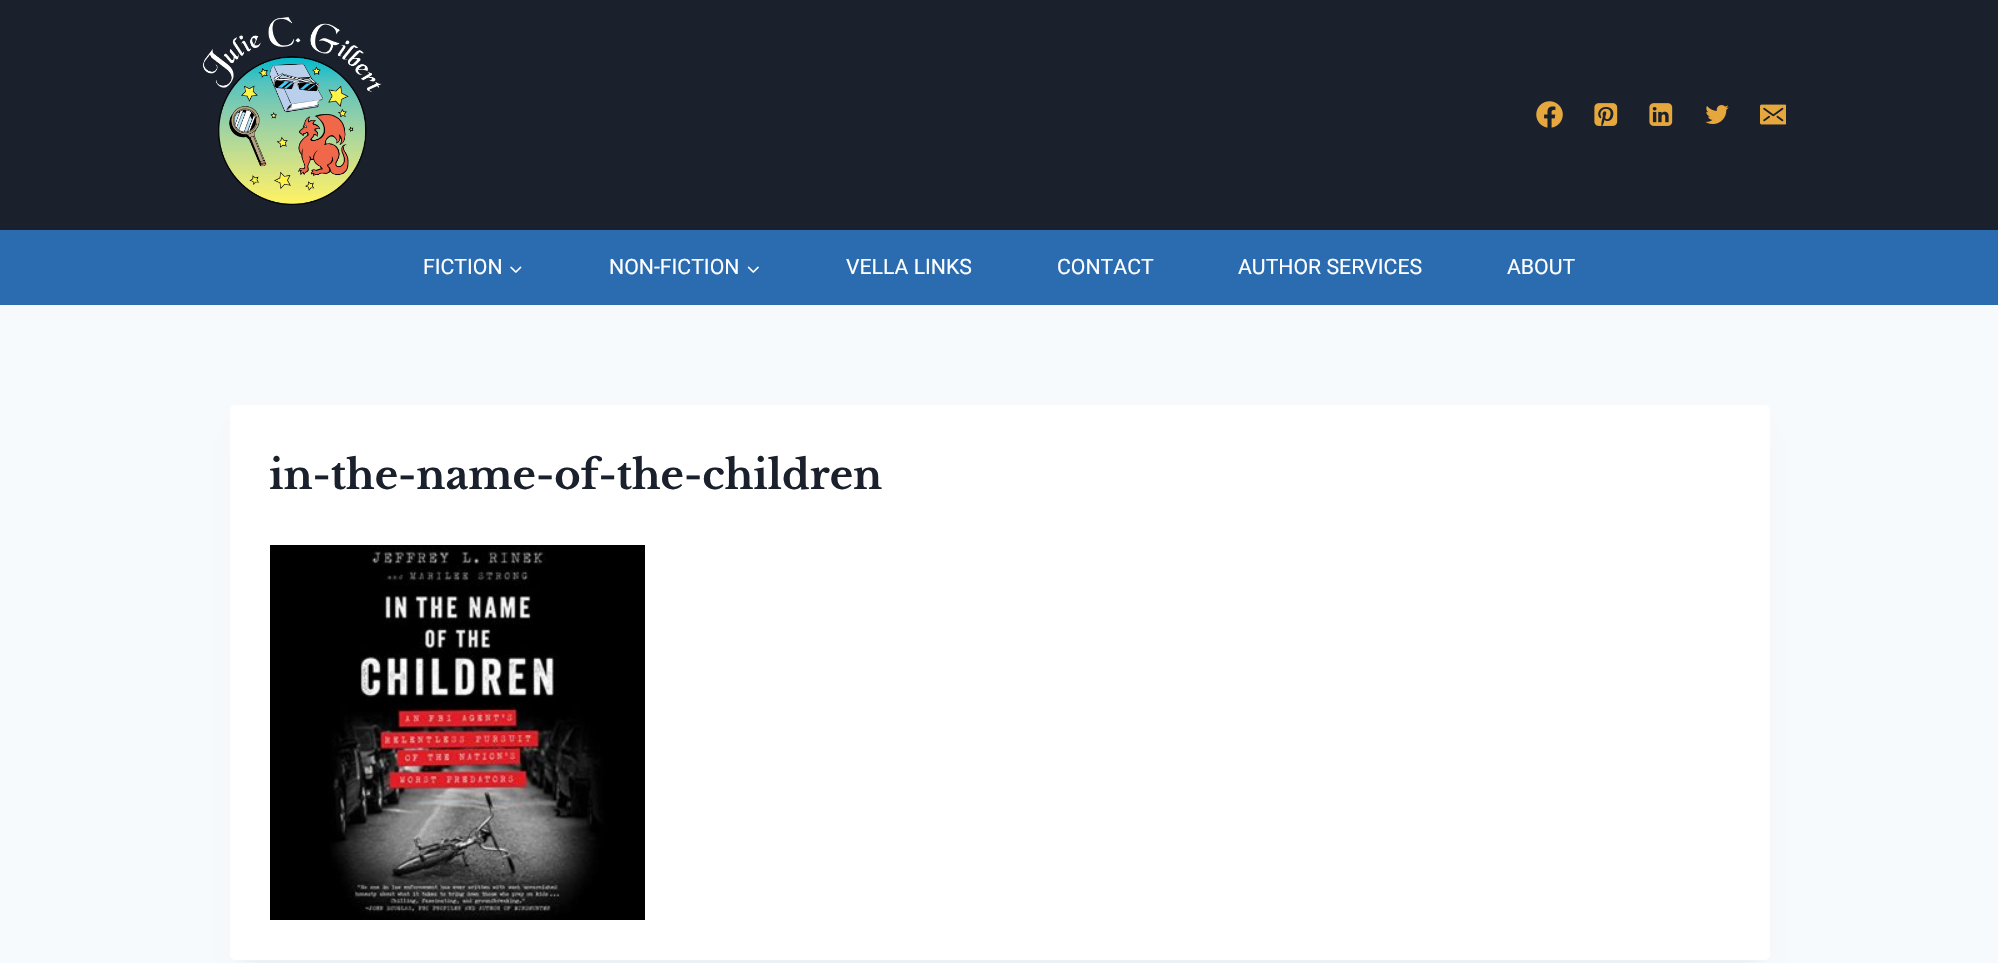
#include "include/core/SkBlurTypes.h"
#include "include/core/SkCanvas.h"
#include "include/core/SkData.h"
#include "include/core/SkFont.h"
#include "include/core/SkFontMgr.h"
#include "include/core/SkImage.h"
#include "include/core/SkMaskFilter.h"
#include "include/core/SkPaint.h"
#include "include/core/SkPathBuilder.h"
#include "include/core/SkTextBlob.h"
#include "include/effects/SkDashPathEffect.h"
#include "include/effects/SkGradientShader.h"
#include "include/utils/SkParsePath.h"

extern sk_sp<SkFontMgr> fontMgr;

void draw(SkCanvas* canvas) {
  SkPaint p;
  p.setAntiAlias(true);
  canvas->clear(SkColorSetRGB(247, 250, 252));
  p.setColor(SkColorSetRGB(26, 32, 44));
  canvas->drawRect(SkRect::MakeLTRB(0, 0, 1998, 230), p);
  canvas->drawImageRect(SkImages::DeferredFromEncodedData(SkData::MakeFromFileName("images/1.png")), SkRect::MakeLTRB(203, 17, 382, 205), SkSamplingOptions());
  canvas->drawImageRect(SkImages::DeferredFromEncodedData(SkData::MakeFromFileName("images/2.png")), SkRect::MakeLTRB(1536, 101, 1563, 128), SkSamplingOptions());
  canvas->drawImageRect(SkImages::DeferredFromEncodedData(SkData::MakeFromFileName("images/3.png")), SkRect::MakeLTRB(1594, 103, 1618, 126), SkSamplingOptions());
  canvas->drawImageRect(SkImages::DeferredFromEncodedData(SkData::MakeFromFileName("images/4.png")), SkRect::MakeLTRB(1649, 103, 1673, 126), SkSamplingOptions());
  canvas->drawImageRect(SkImages::DeferredFromEncodedData(SkData::MakeFromFileName("images/5.png")), SkRect::MakeLTRB(1705, 105, 1729, 124), SkSamplingOptions());
  canvas->drawImageRect(SkImages::DeferredFromEncodedData(SkData::MakeFromFileName("images/6.png")), SkRect::MakeLTRB(1760, 104, 1786, 125), SkSamplingOptions());
  p.setColor(SkColorSetRGB(43, 108, 176));
  canvas->drawRect(SkRect::MakeLTRB(0, 230, 1998, 305), p);
  canvas->drawImageRect(SkImages::DeferredFromEncodedData(SkData::MakeFromFileName("images/7.png")), SkRect::MakeLTRB(510, 266, 522, 273), SkSamplingOptions());
  canvas->drawImageRect(SkImages::DeferredFromEncodedData(SkData::MakeFromFileName("images/8.png")), SkRect::MakeLTRB(747, 266, 759, 273), SkSamplingOptions());
  p.setColor(SkColorSetARGB(13, 0, 0, 0));
  p.setMaskFilter(SkMaskFilter::MakeBlur(kNormal_SkBlurStyle, 9.5f));
  canvas->drawRect(SkRect::MakeLTRB(243, 436, 1758, 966), p);
  p.setMaskFilter(nullptr);
  p.setColor(SK_ColorWHITE);
  canvas->drawRoundRect(SkRect::MakeLTRB(230, 405, 1770, 960), 5, 5, p);
  canvas->drawImageRect(SkImages::DeferredFromEncodedData(SkData::MakeFromFileName("images/9.png")), SkRect::MakeLTRB(270, 545, 645, 920), SkSamplingOptions());
  SkFont font1(fontMgr->matchFamilyStyle("Roboto", SkFontStyle::Normal()), 21.25f);
  font1.setSubpixel(true);
  canvas->drawString("FICTION", 423, 274, font1, p);
  canvas->drawString("NON-FICTION", 609, 274, font1, p);
  canvas->drawString("VELLA LINKS", 846, 274, font1, p);
  canvas->drawString("CONTACT", 1057, 274, font1, p);
  canvas->drawString("AUTHOR SERVICES", 1238, 274, font1, p);
  canvas->drawString("ABOUT", 1507, 274, font1, p);
  SkFont font2(fontMgr->matchFamilyStyle("Libre Baskerville", SkFontStyle::Bold()), 40);
  font2.setSubpixel(true);
  p.setColor(SkColorSetRGB(26, 32, 44));
  canvas->drawString("in-the-name-of-the-children", 269, 489, font2, p);
}
